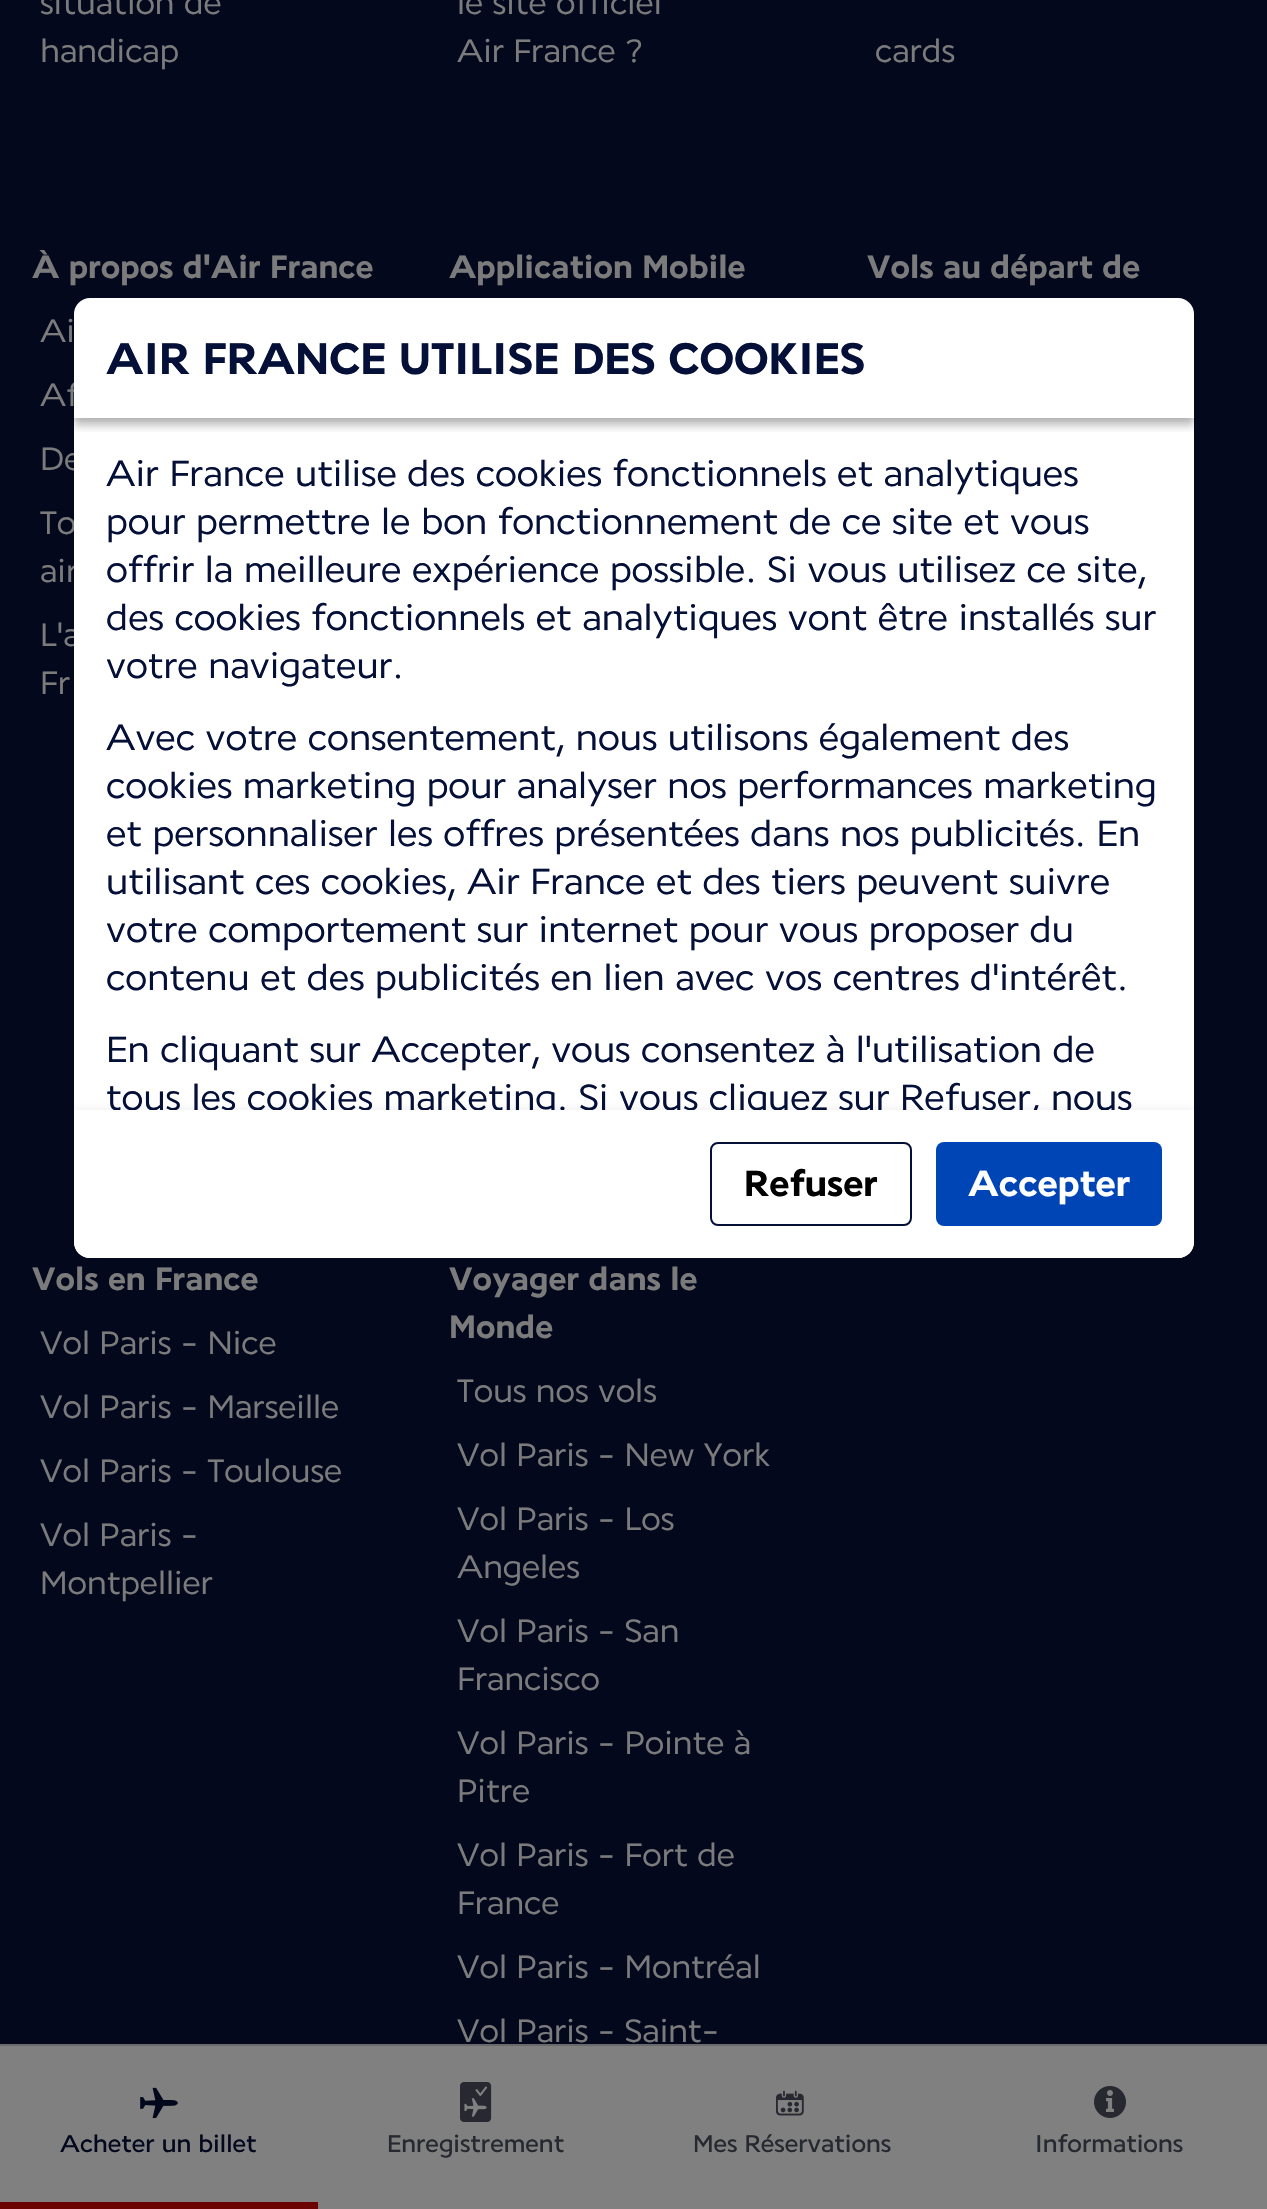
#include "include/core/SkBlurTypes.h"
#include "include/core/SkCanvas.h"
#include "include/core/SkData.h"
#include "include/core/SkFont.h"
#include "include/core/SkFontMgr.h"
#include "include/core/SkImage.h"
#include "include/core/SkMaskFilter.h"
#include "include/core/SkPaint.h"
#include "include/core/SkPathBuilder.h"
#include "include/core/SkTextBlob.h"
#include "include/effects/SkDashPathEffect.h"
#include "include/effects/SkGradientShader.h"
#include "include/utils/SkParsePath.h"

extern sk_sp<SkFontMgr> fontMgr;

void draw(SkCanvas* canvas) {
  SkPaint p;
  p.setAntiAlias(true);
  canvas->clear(SkColorSetRGB(3, 8, 29));
  p.setColor(SkColorSetRGB(128, 128, 128));
  canvas->drawRect(SkRect::MakeLTRB(0, 2046, 1267, 2209), p);
  p.setColor(SkColorSetRGB(106, 106, 108));
  canvas->drawRect(SkRect::MakeLTRB(0, 2044, 1267, 2046), p);
  canvas->drawImageRect(SkImages::DeferredFromEncodedData(SkData::MakeFromFileName("images/1.png")), SkRect::MakeLTRB(140, 2087, 178, 2118), SkSamplingOptions());
  p.setColor(SkColorSetRGB(106, 3, 2));
  canvas->drawRect(SkRect::MakeLTRB(0, 2202, 318, 2209), p);
  canvas->drawImageRect(SkImages::DeferredFromEncodedData(SkData::MakeFromFileName("images/2.png")), SkRect::MakeLTRB(460, 2082, 492, 2122), SkSamplingOptions());
  canvas->drawImageRect(SkImages::DeferredFromEncodedData(SkData::MakeFromFileName("images/3.png")), SkRect::MakeLTRB(776, 2090, 804, 2116), SkSamplingOptions());
  canvas->drawImageRect(SkImages::DeferredFromEncodedData(SkData::MakeFromFileName("images/4.png")), SkRect::MakeLTRB(1094, 2086, 1126, 2118), SkSamplingOptions());
  SkFont font1(fontMgr->matchFamilyStyle("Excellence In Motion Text", SkFontStyle::Normal()), 32);
  font1.setSubpixel(true);
  p.setColor(SkColorSetRGB(123, 123, 124));
  canvas->drawString("situation de", 40, 14, font1, p);
  canvas->drawString("handicap", 40, 62, font1, p);
  canvas->drawString("le site officiel", 457, 14, font1, p);
  canvas->drawString("Air France ?", 457, 62, font1, p);
  canvas->drawString("cards", 875, 62, font1, p);
  SkFont font2(fontMgr->matchFamilyStyle("Excellence In Motion Text", SkFontStyle::Bold()), 32);
  font2.setSubpixel(true);
  canvas->drawString("À propos d'Air France", 32, 278, font2, p);
  canvas->drawString("Ai", 40, 342, font1, p);
  canvas->drawString("Af", 40, 406, font1, p);
  canvas->drawString("De", 40, 470, font1, p);
  canvas->drawString("To", 40, 534, font1, p);
  canvas->drawString("air", 40, 582, font1, p);
  canvas->drawString("L'a", 40, 646, font1, p);
  canvas->drawString("Fr", 40, 694, font1, p);
  canvas->drawString("Application Mobile", 449, 278, font2, p);
  canvas->drawString("Vols au départ de", 867, 278, font2, p);
  canvas->drawString("Vols en France", 32, 1290, font2, p);
  canvas->drawString("Vol Paris - Nice", 40, 1354, font1, p);
  canvas->drawString("Vol Paris - Marseille", 40, 1418, font1, p);
  canvas->drawString("Vol Paris - Toulouse", 40, 1482, font1, p);
  canvas->drawString("Vol Paris -", 40, 1546, font1, p);
  canvas->drawString("Montpellier", 40, 1594, font1, p);
  canvas->drawString("Voyager dans le", 449, 1290, font2, p);
  canvas->drawString("Monde", 449, 1338, font2, p);
  canvas->drawString("Tous nos vols", 457, 1402, font1, p);
  canvas->drawString("Vol Paris - New York", 457, 1466, font1, p);
  canvas->drawString("Vol Paris - Los", 457, 1530, font1, p);
  canvas->drawString("Angeles", 457, 1578, font1, p);
  canvas->drawString("Vol Paris - San", 457, 1642, font1, p);
  canvas->drawString("Francisco", 457, 1690, font1, p);
  canvas->drawString("Vol Paris - Pointe à", 457, 1754, font1, p);
  canvas->drawString("Pitre", 457, 1802, font1, p);
  canvas->drawString("Vol Paris - Fort de", 457, 1866, font1, p);
  canvas->drawString("France", 457, 1914, font1, p);
  canvas->drawString("Vol Paris - Montréal", 457, 1978, font1, p);
  canvas->drawString("Vol Paris - Saint-", 457, 2042, font1, p);
  SkFont font3(fontMgr->matchFamilyStyle("Excellence In Motion Text", SkFontStyle(500, SkFontStyle::kNormal_Width, SkFontStyle::kUpright_Slant)), 24);
  font3.setSubpixel(true);
  p.setColor(SkColorSetRGB(3, 8, 29));
  canvas->drawString("Acheter un billet", 60, 2152, font3, p);
  p.setColor(SkColorSetRGB(39, 41, 48));
  canvas->drawString("Enregistrement", 387, 2152, font3, p);
  canvas->drawString("Mes Réservations", 693, 2152, font3, p);
  canvas->drawString("Informations", 1035, 2152, font3, p);
  p.setColor(SK_ColorWHITE);
  canvas->drawRoundRect(SkRect::MakeLTRB(74, 298, 1194, 1258), 16, 16, p);
  canvas->save();
  canvas->clipPath(SkPathBuilder().moveTo(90, 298).lineTo(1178, 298).cubicTo(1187, 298, 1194, 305, 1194, 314).lineTo(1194, 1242).cubicTo(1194, 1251, 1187, 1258, 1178, 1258).lineTo(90, 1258).cubicTo(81, 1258, 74, 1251, 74, 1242).lineTo(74, 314).cubicTo(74, 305, 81, 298, 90, 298).close().detach(), true);
  canvas->clipRect(SkRect::MakeLTRB(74, 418, 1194, 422));
  p.setColor(SkColorSetARGB(31, 0, 0, 0));
  p.setMaskFilter(SkMaskFilter::MakeBlur(kNormal_SkBlurStyle, 4));
  canvas->drawRect(SkRect::MakeLTRB(74, 298, 1194, 418), p);
  p.setMaskFilter(nullptr);
  canvas->restore();
  canvas->save();
  canvas->clipPath(SkPathBuilder().moveTo(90, 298).lineTo(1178, 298).cubicTo(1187, 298, 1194, 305, 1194, 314).lineTo(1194, 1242).cubicTo(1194, 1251, 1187, 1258, 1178, 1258).lineTo(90, 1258).cubicTo(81, 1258, 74, 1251, 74, 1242).lineTo(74, 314).cubicTo(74, 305, 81, 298, 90, 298).close().detach(), true);
  canvas->clipRect(SkRect::MakeLTRB(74, 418, 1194, 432));
  p.setColor(SkColorSetARGB(61, 0, 0, 0));
  p.setMaskFilter(SkMaskFilter::MakeBlur(kNormal_SkBlurStyle, 4));
  canvas->drawRect(SkRect::MakeLTRB(74, 306, 1194, 426), p);
  p.setMaskFilter(nullptr);
  canvas->restore();
  SkFont font4(fontMgr->matchFamilyStyle("Excellence In Motion Text", SkFontStyle::Bold()), 44);
  font4.setSubpixel(true);
  p.setColor(SkColorSetRGB(5, 16, 57));
  canvas->drawString("AIR FRANCE UTILISE DES COOKIES", 106, 374, font4, p);
  SkFont font5(fontMgr->matchFamilyStyle("Excellence In Motion Text", SkFontStyle::Normal()), 36);
  font5.setSubpixel(true);
  canvas->drawString("Air France utilise des cookies fonctionnels et analytiques", 106, 486, font5, p);
  canvas->drawString("pour permettre le bon fonctionnement de ce site et vous", 106, 534, font5, p);
  canvas->drawString("offrir la meilleure expérience possible. Si vous utilisez ce site,", 106, 582, font5, p);
  canvas->drawString("des cookies fonctionnels et analytiques vont être installés sur", 106, 630, font5, p);
  canvas->drawString("votre navigateur.", 106, 678, font5, p);
  canvas->drawString("Avec votre consentement, nous utilisons également des", 106, 750, font5, p);
  canvas->drawString("cookies marketing pour analyser nos performances marketing", 106, 798, font5, p);
  canvas->drawString("et personnaliser les offres présentées dans nos publicités. En", 106, 846, font5, p);
  canvas->drawString("utilisant ces cookies, Air France et des tiers peuvent suivre", 106, 894, font5, p);
  canvas->drawString("votre comportement sur internet pour vous proposer du", 106, 942, font5, p);
  canvas->drawString("contenu et des publicités en lien avec vos centres d'intérêt.", 106, 990, font5, p);
  canvas->drawString("En cliquant sur Accepter, vous consentez à l'utilisation de", 106, 1062, font5, p);
  canvas->save();
  canvas->clipPath(SkPathBuilder().moveTo(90, 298).lineTo(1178, 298).cubicTo(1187, 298, 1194, 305, 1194, 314).lineTo(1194, 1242).cubicTo(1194, 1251, 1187, 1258, 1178, 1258).lineTo(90, 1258).cubicTo(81, 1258, 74, 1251, 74, 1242).lineTo(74, 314).cubicTo(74, 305, 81, 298, 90, 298).close().detach(), true);
  p.setColor(SkColorSetARGB(31, 0, 0, 0));
  p.setMaskFilter(SkMaskFilter::MakeBlur(kNormal_SkBlurStyle, 5));
  canvas->drawRect(SkRect::MakeLTRB(74, 1112, 1194, 1260), p);
  p.setMaskFilter(nullptr);
  canvas->restore();
  canvas->save();
  canvas->clipRect(SkRect::MakeLTRB(74, 418, 1194, 1110));
  p.setColor(SkColorSetRGB(5, 16, 57));
  canvas->drawString("tous les cookies marketing. Si vous cliquez sur Refuser, nous", 106, 1110, font5, p);
  canvas->restore();
  p.setColor(SK_ColorWHITE);
  canvas->drawPath(SkPathBuilder().moveTo(74, 1110).lineTo(1194, 1110).lineTo(1194, 1242).cubicTo(1194, 1251, 1187, 1258, 1178, 1258).lineTo(90, 1258).cubicTo(81, 1258, 74, 1251, 74, 1242).close().detach(), p);
  p.setStyle(SkPaint::kStroke_Style);
  p.setStrokeWidth(2);
  p.setColor(SkColorSetRGB(5, 16, 57));
  canvas->drawRoundRect(SkRect::MakeLTRB(711, 1143, 911, 1225), 7, 7, p);
  SkFont font6(fontMgr->matchFamilyStyle("Excellence In Motion Text", SkFontStyle::Bold()), 36);
  font6.setSubpixel(true);
  p.setStyle(SkPaint::kFill_Style);
  p.setColor(SK_ColorBLACK);
  canvas->drawString("Refuser", 744, 1196, font6, p);
  p.setColor(SkColorSetRGB(0, 69, 182));
  canvas->drawRoundRect(SkRect::MakeLTRB(936, 1142, 1162, 1226), 8, 8, p);
  p.setColor(SK_ColorWHITE);
  canvas->drawString("Accepter", 968, 1196, font6, p);
}
